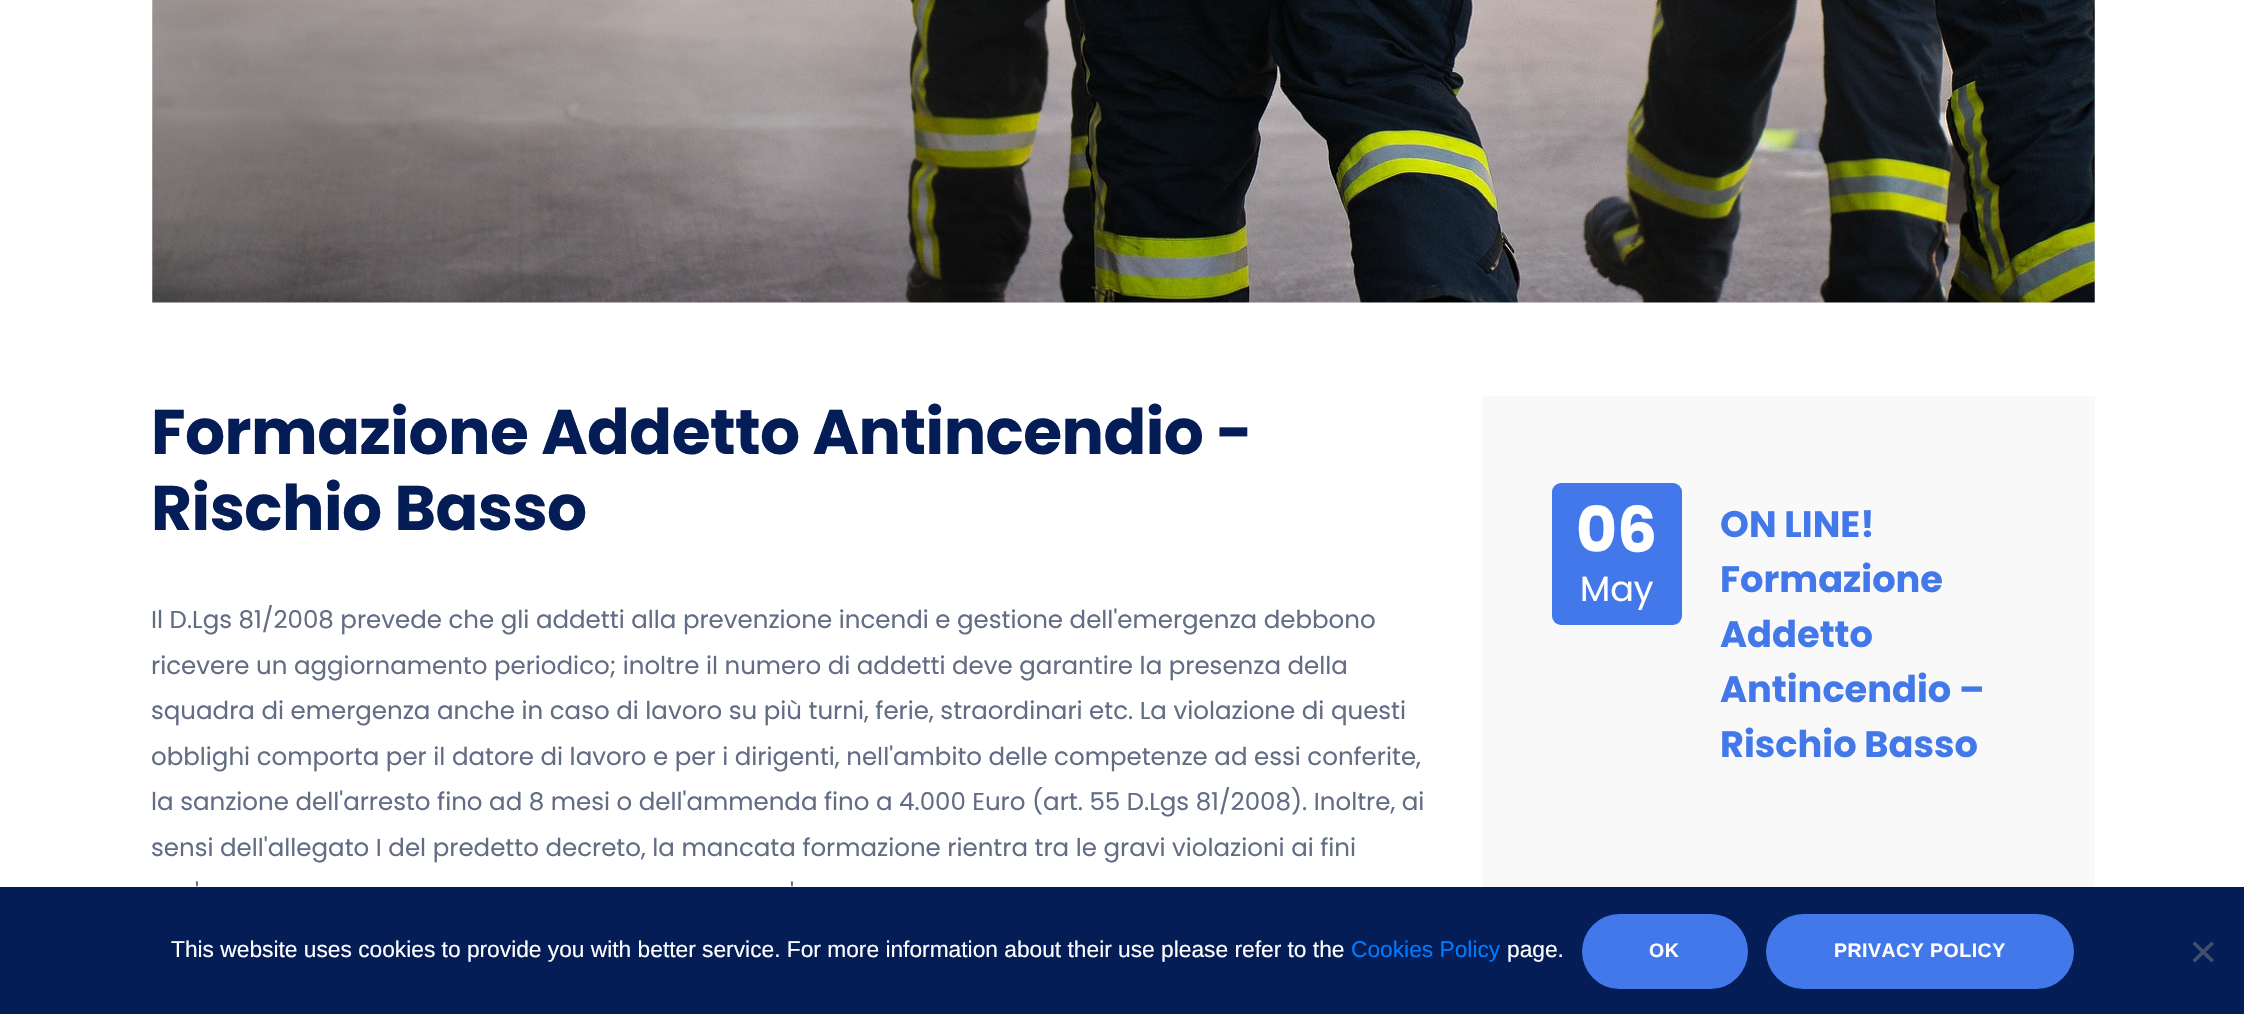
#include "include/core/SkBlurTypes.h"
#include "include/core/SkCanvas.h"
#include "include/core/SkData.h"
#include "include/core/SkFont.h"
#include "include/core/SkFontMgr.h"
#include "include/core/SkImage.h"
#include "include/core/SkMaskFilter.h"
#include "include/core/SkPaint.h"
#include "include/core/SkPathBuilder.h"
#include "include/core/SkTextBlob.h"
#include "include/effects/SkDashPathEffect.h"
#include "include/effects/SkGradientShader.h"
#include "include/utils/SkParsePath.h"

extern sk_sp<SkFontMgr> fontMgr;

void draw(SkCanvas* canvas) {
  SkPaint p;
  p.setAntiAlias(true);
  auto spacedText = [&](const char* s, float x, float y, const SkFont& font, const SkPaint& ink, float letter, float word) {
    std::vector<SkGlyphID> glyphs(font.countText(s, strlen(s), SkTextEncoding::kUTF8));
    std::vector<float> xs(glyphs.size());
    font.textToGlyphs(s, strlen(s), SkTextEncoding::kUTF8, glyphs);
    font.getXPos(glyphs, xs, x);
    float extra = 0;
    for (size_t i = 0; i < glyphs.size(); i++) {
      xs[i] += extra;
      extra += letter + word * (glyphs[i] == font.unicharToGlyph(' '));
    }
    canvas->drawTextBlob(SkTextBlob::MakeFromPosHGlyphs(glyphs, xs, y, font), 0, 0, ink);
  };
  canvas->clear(SK_ColorWHITE);
  canvas->drawImageRect(SkImages::DeferredFromEncodedData(SkData::MakeFromFileName("images/1.png")), SkRect::MakeLTRB(152, 0, 2095, 303), SkSamplingOptions());
  p.setColor(SkColorSetRGB(249, 249, 249));
  canvas->drawRect(SkRect::MakeLTRB(1482, 396, 2095, 887), p);
  p.setColor(SkColorSetRGB(67, 120, 235));
  canvas->drawRoundRect(SkRect::MakeLTRB(1552, 483, 1682, 625), 9, 9, p);
  p.setColor(SkColorSetRGB(4, 29, 87));
  canvas->drawRect(SkRect::MakeLTRB(0, 887, 2244, 1014), p);
  p.setColor(SkColorSetRGB(66, 120, 233));
  canvas->drawRoundRect(SkRect::MakeLTRB(1582, 914, 1748, 989), 37.5f, 37.5f, p);
  canvas->drawRoundRect(SkRect::MakeLTRB(1766, 914, 2074, 989), 37.5f, 37.5f, p);
  p.setColor(SkColorSetRGB(66, 79, 108));
  canvas->drawPath(SkPathBuilder().moveTo(2211.5f, 941.5f).lineTo(2214, 944).lineTo(2195, 962.5f).lineTo(2192.5f, 960).close().detach(), p);
  canvas->drawPath(SkPathBuilder().moveTo(2192.5f, 944).lineTo(2195, 941.5f).lineTo(2214, 960).lineTo(2211.5f, 962.5f).close().detach(), p);
  SkFont font1(fontMgr->matchFamilyStyle("Poppins", SkFontStyle::Bold()), 63);
  font1.setSubpixel(true);
  p.setColor(SkColorSetRGB(4, 29, 87));
  spacedText("Formazione Addetto Antincendio -", 151, 454, font1, p, -0.5f, 0);
  spacedText("Rischio Basso", 151, 530, font1, p, -0.5f, 0);
  SkFont font2(fontMgr->matchFamilyStyle("Poppins", SkFontStyle::Normal()), 24.5f);
  font2.setSubpixel(true);
  p.setColor(SkColorSetRGB(98, 108, 132));
  canvas->drawString("Il D.Lgs 81/2008 prevede che gli addetti alla prevenzione incendi e gestione dell'emergenza debbono", 151, 628, font2, p);
  canvas->drawString("ricevere un aggiornamento periodico; inoltre il numero di addetti deve garantire la presenza della", 151, 674, font2, p);
  canvas->drawString("squadra di emergenza anche in caso di lavoro su più turni, ferie, straordinari etc. La violazione di questi", 151, 719, font2, p);
  canvas->drawString("obblighi comporta per il datore di lavoro e per i dirigenti, nell'ambito delle competenze ad essi conferite,", 151, 765, font2, p);
  canvas->drawString("la sanzione dell'arresto fino ad 8 mesi o dell'ammenda fino a 4.000 Euro (art. 55 D.Lgs 81/2008). Inoltre, ai", 151, 810, font2, p);
  canvas->drawString("sensi dell'allegato I del predetto decreto, la mancata formazione rientra tra le gravi violazioni ai fini", 151, 856, font2, p);
  canvas->drawString("'", 195, 901, font2, p);
  canvas->drawString("'", 790, 901, font2, p);
  p.setColor(SK_ColorWHITE);
  canvas->drawString("06", 1576, 552, font1, p);
  SkFont font3(fontMgr->matchFamilyStyle("Poppins", SkFontStyle::Normal()), 35);
  font3.setSubpixel(true);
  canvas->drawString("May", 1580, 601, font3, p);
  SkFont font4(fontMgr->matchFamilyStyle("Poppins", SkFontStyle::Bold()), 36.75f);
  font4.setSubpixel(true);
  p.setColor(SkColorSetRGB(66, 120, 233));
  canvas->drawString("ON LINE!", 1720, 537, font4, p);
  canvas->drawString("Formazione", 1720, 592, font4, p);
  canvas->drawString("Addetto", 1720, 647, font4, p);
  canvas->drawString("Antincendio –", 1720, 702, font4, p);
  canvas->drawString("Rischio Basso", 1720, 757, font4, p);
  SkFont font5(fontMgr->matchFamilyStyle("Liberation Sans", SkFontStyle::Normal()), 22.75f);
  font5.setSubpixel(true);
  p.setColor(SK_ColorWHITE);
  canvas->drawString("This website uses cookies to provide you with better service. For more information about their use please refer to the", 171, 957, font5, p);
  p.setColor(SkColorSetRGB(0, 123, 255));
  canvas->drawString("Cookies Policy", 1351, 957, font5, p);
  p.setColor(SK_ColorWHITE);
  canvas->drawString("page.", 1507, 957, font5, p);
  SkFont font6(fontMgr->matchFamilyStyle("Liberation Sans", SkFontStyle::Bold()), 19.5f);
  font6.setSubpixel(true);
  spacedText("OK", 1649, 957, font6, p, 0.5f, 0);
  spacedText("PRIVACY POLICY", 1834, 957, font6, p, 0.5f, 0);
}
